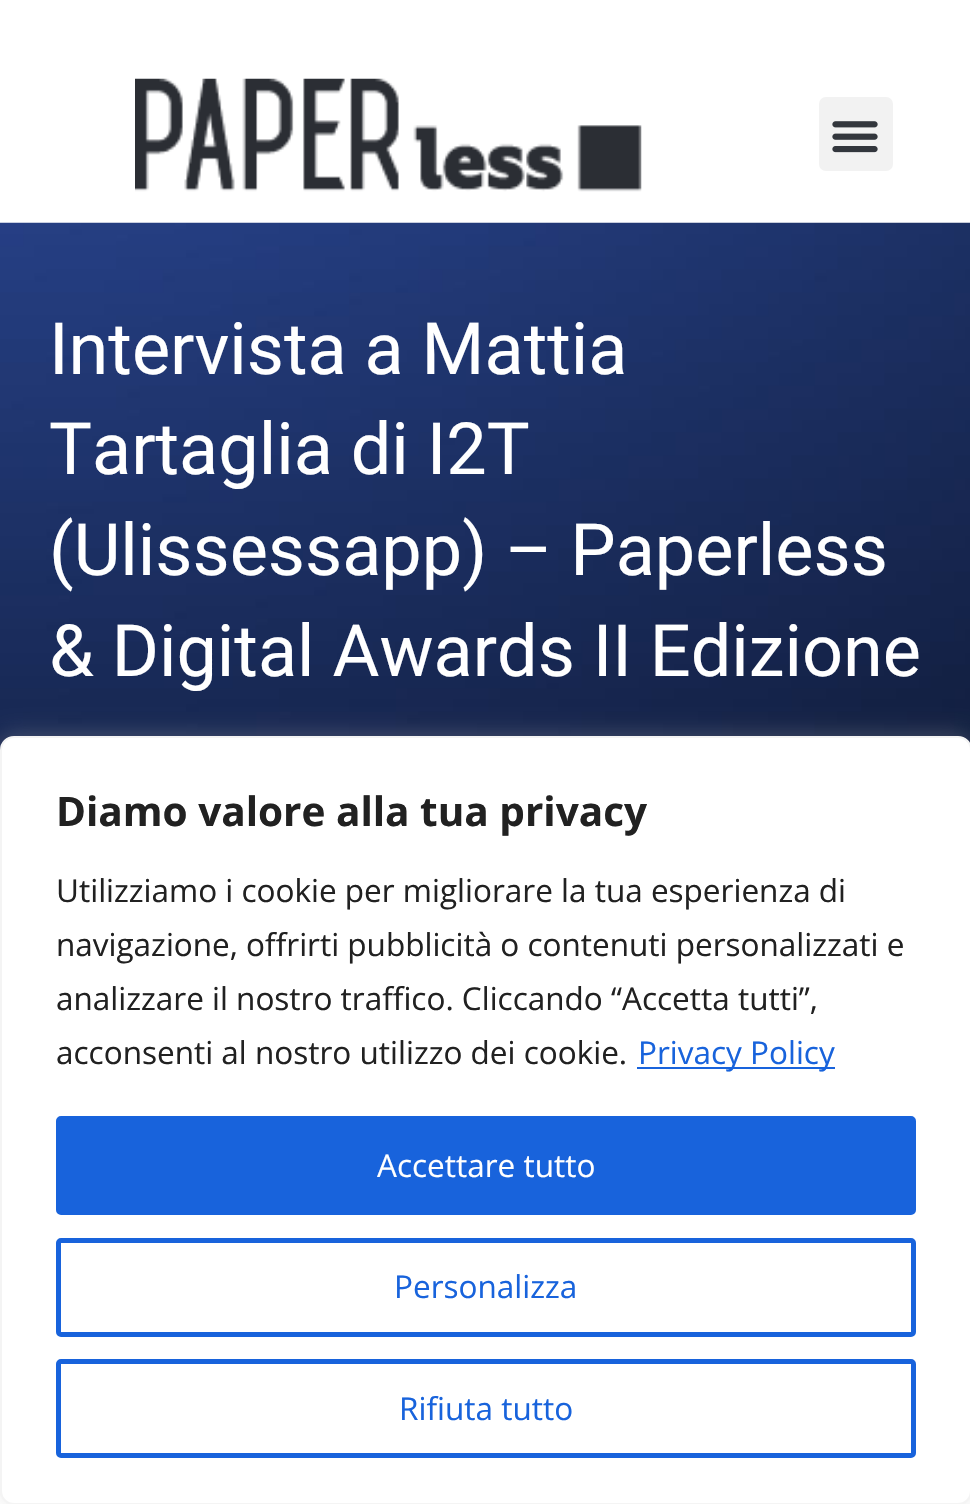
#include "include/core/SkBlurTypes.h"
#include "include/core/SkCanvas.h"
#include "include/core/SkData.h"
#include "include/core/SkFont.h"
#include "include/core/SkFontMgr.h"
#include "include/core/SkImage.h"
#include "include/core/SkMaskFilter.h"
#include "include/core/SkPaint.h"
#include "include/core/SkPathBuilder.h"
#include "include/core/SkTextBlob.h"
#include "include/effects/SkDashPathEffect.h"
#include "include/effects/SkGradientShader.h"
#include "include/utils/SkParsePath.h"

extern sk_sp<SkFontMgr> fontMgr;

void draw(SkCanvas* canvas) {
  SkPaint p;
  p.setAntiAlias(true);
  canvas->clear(SK_ColorWHITE);
  canvas->drawImageRect(SkImages::DeferredFromEncodedData(SkData::MakeFromFileName("images/1.png")), SkRect::MakeLTRB(135, 78, 642, 192), SkSamplingOptions());
  p.setColor(SkColorSetRGB(242, 242, 242));
  canvas->drawRoundRect(SkRect::MakeLTRB(819, 97, 893, 171), 7, 7, p);
  canvas->drawImageRect(SkImages::DeferredFromEncodedData(SkData::MakeFromFileName("images/2.png")), SkRect::MakeLTRB(832, 121, 878, 153), SkSamplingOptions());
  canvas->drawImageRect(SkImages::DeferredFromEncodedData(SkData::MakeFromFileName("images/3.png")), SkRect::MakeLTRB(0, 222, 970, 750), SkSamplingOptions());
  p.setColor(SkColorSetARGB(77, 172, 171, 171));
  p.setMaskFilter(SkMaskFilter::MakeBlur(kNormal_SkBlurStyle, 11));
  canvas->drawRoundRect(SkRect::MakeLTRB(0, 734, 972, 1503), 14, 14, p);
  p.setMaskFilter(nullptr);
  p.setColor(SK_ColorWHITE);
  canvas->drawRoundRect(SkRect::MakeLTRB(1, 737, 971, 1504), 13, 13, p);
  p.setStyle(SkPaint::kStroke_Style);
  p.setStrokeWidth(2);
  p.setColor(SkColorSetRGB(244, 244, 244));
  canvas->drawRoundRect(SkRect::MakeLTRB(1, 737, 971, 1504), 13, 13, p);
  p.setStyle(SkPaint::kFill_Style);
  p.setColor(SkColorSetRGB(24, 99, 220));
  canvas->drawRect(SkRect::MakeLTRB(637, 1067, 835, 1069), p);
  canvas->drawRoundRect(SkRect::MakeLTRB(58.5f, 1118.5f, 913.5f, 1212.5f), 2.5f, 2.5f, p);
  p.setStyle(SkPaint::kStroke_Style);
  p.setStrokeWidth(5);
  canvas->drawRoundRect(SkRect::MakeLTRB(58.5f, 1118.5f, 913.5f, 1212.5f), 2.5f, 2.5f, p);
  canvas->drawRoundRect(SkRect::MakeLTRB(58.5f, 1240.5f, 913.5f, 1334.5f), 2.5f, 2.5f, p);
  canvas->drawRoundRect(SkRect::MakeLTRB(58.5f, 1361.5f, 913.5f, 1455.5f), 2.5f, 2.5f, p);
  SkFont font1(fontMgr->matchFamilyStyle("Roboto", SkFontStyle::Normal()), 72);
  font1.setSubpixel(true);
  p.setStyle(SkPaint::kFill_Style);
  p.setColor(SK_ColorWHITE);
  canvas->drawString("Intervista a Mattia", 49, 374, font1, p);
  canvas->drawString("Tartaglia di I2T", 49, 474, font1, p);
  canvas->drawString("(Ulissessapp) – Paperless", 49, 575, font1, p);
  canvas->drawString("& Digital Awards II Edizione", 49, 676, font1, p);
  SkFont font2(fontMgr->matchFamilyStyle("Open Sans", SkFontStyle::Bold()), 40.5f);
  font2.setSubpixel(true);
  p.setColor(SkColorSetRGB(33, 33, 33));
  canvas->drawString("Diamo valore alla tua privacy", 56, 826, font2, p);
  SkFont font3(fontMgr->matchFamilyStyle("Open Sans", SkFontStyle::Normal()), 31.5f);
  font3.setSubpixel(true);
  canvas->drawString("Utilizziamo i cookie per migliorare la tua esperienza di", 56, 902, font3, p);
  canvas->drawString("navigazione, offrirti pubblicità o contenuti personalizzati e", 56, 956, font3, p);
  canvas->drawString("analizzare il nostro traffico. Cliccando “Accetta tutti”,", 56, 1010, font3, p);
  canvas->drawString("acconsenti al nostro utilizzo dei cookie.", 56, 1064, font3, p);
  p.setColor(SkColorSetRGB(24, 99, 220));
  canvas->drawString("Privacy Policy", 638, 1064, font3, p);
  p.setColor(SK_ColorWHITE);
  canvas->drawString("Accettare tutto", 377, 1177, font3, p);
  p.setColor(SkColorSetRGB(24, 99, 220));
  canvas->drawString("Personalizza", 394, 1298, font3, p);
  canvas->drawString("Rifiuta tutto", 399, 1420, font3, p);
}
